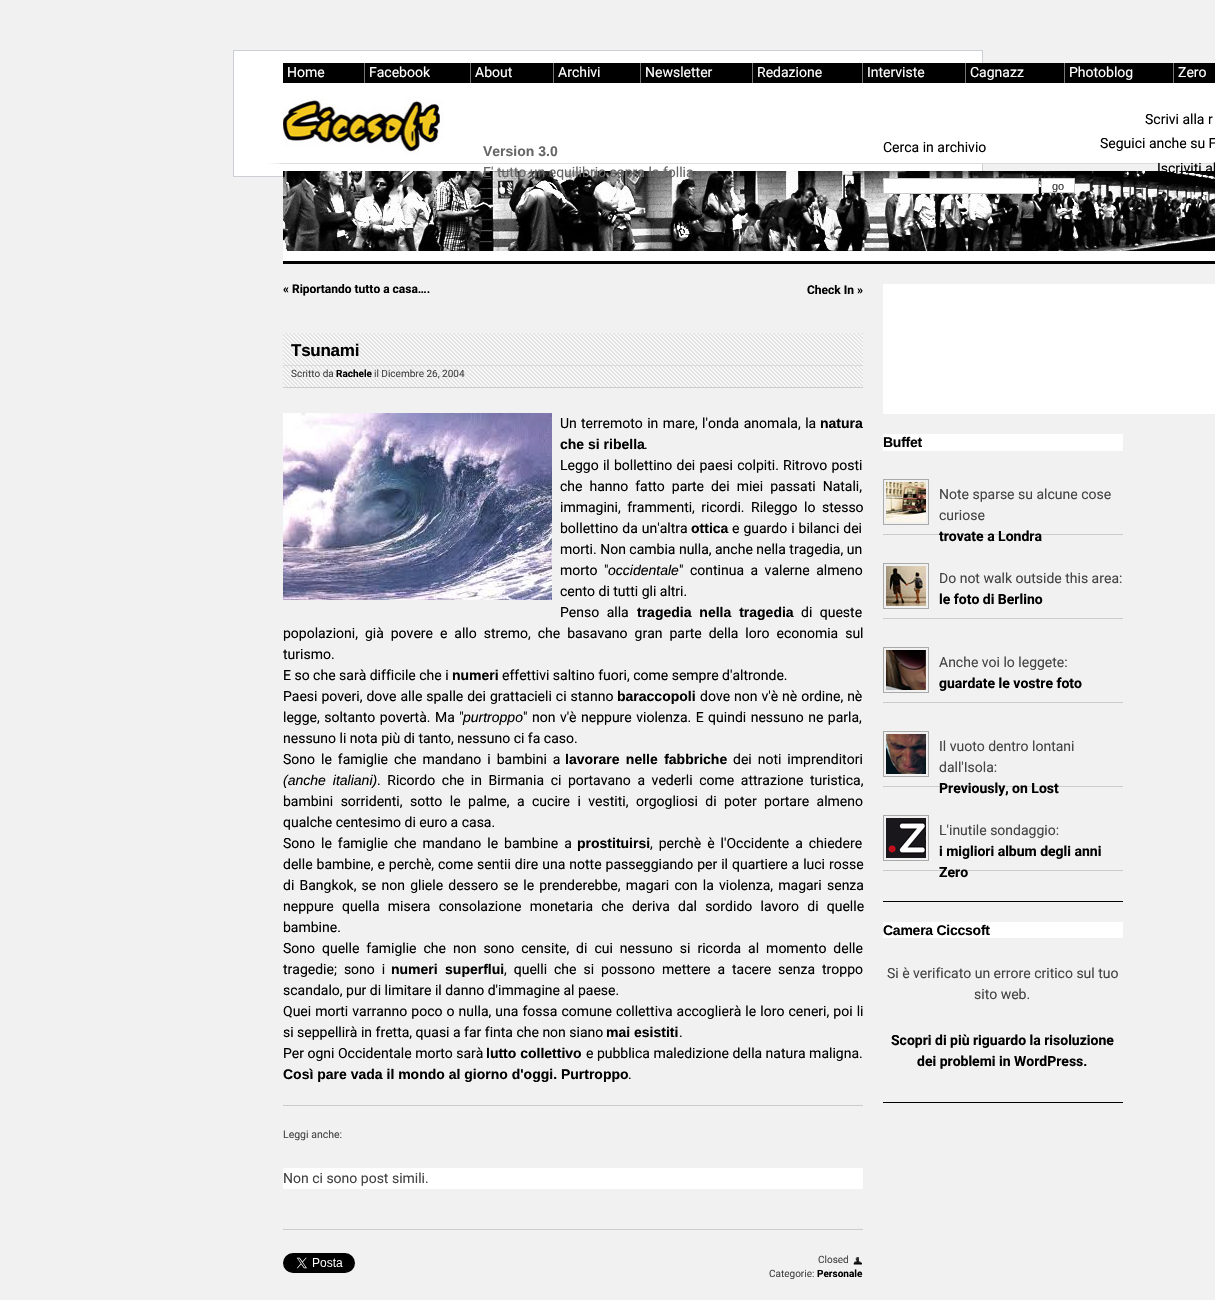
#include "include/core/SkBlurTypes.h"
#include "include/core/SkCanvas.h"
#include "include/core/SkData.h"
#include "include/core/SkFont.h"
#include "include/core/SkFontMgr.h"
#include "include/core/SkImage.h"
#include "include/core/SkMaskFilter.h"
#include "include/core/SkPaint.h"
#include "include/core/SkPathBuilder.h"
#include "include/core/SkTextBlob.h"
#include "include/effects/SkDashPathEffect.h"
#include "include/effects/SkGradientShader.h"
#include "include/utils/SkParsePath.h"

extern sk_sp<SkFontMgr> fontMgr;

void draw(SkCanvas* canvas) {
  SkPaint p;
  p.setAntiAlias(true);
  auto spacedText = [&](const char* s, float x, float y, const SkFont& font, const SkPaint& ink, float letter, float word) {
    std::vector<SkGlyphID> glyphs(font.countText(s, strlen(s), SkTextEncoding::kUTF8));
    std::vector<float> xs(glyphs.size());
    font.textToGlyphs(s, strlen(s), SkTextEncoding::kUTF8, glyphs);
    font.getXPos(glyphs, xs, x);
    float extra = 0;
    for (size_t i = 0; i < glyphs.size(); i++) {
      xs[i] += extra;
      extra += letter + word * (glyphs[i] == font.unicharToGlyph(' '));
    }
    canvas->drawTextBlob(SkTextBlob::MakeFromPosHGlyphs(glyphs, xs, y, font), 0, 0, ink);
  };
  canvas->clear(SkColorSetRGB(241, 241, 241));
  p.setColor(SK_ColorWHITE);
  canvas->drawRect(SkRect::MakeLTRB(233.5f, 50.5f, 982.5f, 176.5f), p);
  p.setStyle(SkPaint::kStroke_Style);
  p.setStrokeWidth(1);
  p.setColor(SkColorSetRGB(204, 208, 212));
  canvas->drawRect(SkRect::MakeLTRB(233.5f, 50.5f, 982.5f, 176.5f), p);
  p.setStyle(SkPaint::kFill_Style);
  p.setColor(SK_ColorWHITE);
  canvas->drawPath(SkPathBuilder().moveTo(258, 63).lineTo(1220, 63).lineTo(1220, 159).cubicTo(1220, 162, 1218, 164, 1215, 164).lineTo(263, 164).cubicTo(260, 164, 258, 162, 258, 159).close().detach(), p);
  p.setColor(SkColorSetRGB(221, 221, 221));
  canvas->drawPath(SkPathBuilder().moveTo(263, 164).lineTo(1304, 164).lineTo(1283, 163).lineTo(283, 163).lineTo(262, 164).close().detach(), p);
  p.setColor(SK_ColorWHITE);
  canvas->drawPath(SkPathBuilder().moveTo(258, 63).lineTo(283, 63).lineTo(283, 163).lineTo(262, 164).cubicTo(259, 163, 258, 162, 258, 159).close().detach(), p);
  canvas->drawImageRect(SkImages::DeferredFromEncodedData(SkData::MakeFromFileName("images/1.png")), SkRect::MakeLTRB(283, 97, 444, 155), SkSamplingOptions());
  p.setColor(SK_ColorBLACK);
  canvas->drawRect(SkRect::MakeLTRB(283, 63, 1215, 83), p);
  p.setColor(SkColorSetRGB(118, 118, 118));
  canvas->drawRect(SkRect::MakeLTRB(364, 63, 365, 83), p);
  canvas->drawRect(SkRect::MakeLTRB(470, 63, 471, 83), p);
  canvas->drawRect(SkRect::MakeLTRB(553, 63, 554, 83), p);
  canvas->drawRect(SkRect::MakeLTRB(640, 63, 641, 83), p);
  canvas->drawRect(SkRect::MakeLTRB(752, 63, 753, 83), p);
  canvas->drawRect(SkRect::MakeLTRB(862, 63, 863, 83), p);
  canvas->drawRect(SkRect::MakeLTRB(965, 63, 966, 83), p);
  canvas->drawRect(SkRect::MakeLTRB(1064, 63, 1065, 83), p);
  canvas->drawRect(SkRect::MakeLTRB(1173, 63, 1174, 83), p);
  canvas->drawImageRect(SkImages::DeferredFromEncodedData(SkData::MakeFromFileName("images/2.png")), SkRect::MakeLTRB(283, 171, 1215, 251), SkSamplingOptions());
  p.setColor(SK_ColorWHITE);
  canvas->drawRect(SkRect::MakeLTRB(883.5f, 178.5f, 1038.5f, 193.5f), p);
  p.setStyle(SkPaint::kStroke_Style);
  p.setColor(SkColorSetRGB(204, 204, 204));
  canvas->drawRect(SkRect::MakeLTRB(883.5f, 178.5f, 1038.5f, 193.5f), p);
  p.setStyle(SkPaint::kFill_Style);
  p.setColor(SK_ColorWHITE);
  canvas->drawRect(SkRect::MakeLTRB(1041.5f, 178.5f, 1074.5f, 192.5f), p);
  p.setStyle(SkPaint::kStroke_Style);
  p.setColor(SkColorSetRGB(204, 204, 204));
  canvas->drawRect(SkRect::MakeLTRB(1041.5f, 178.5f, 1074.5f, 192.5f), p);
  p.setStyle(SkPaint::kFill_Style);
  p.setColor(SK_ColorWHITE);
  canvas->drawRect(SkRect::MakeLTRB(283, 251, 1215, 261), p);
  p.setColor(SK_ColorBLACK);
  canvas->drawRect(SkRect::MakeLTRB(283, 261, 1215, 264), p);
  canvas->drawImageRect(SkImages::DeferredFromEncodedData(SkData::MakeFromFileName("images/3.png")), SkRect::MakeLTRB(283, 333, 863, 387), SkSamplingOptions());
  p.setColor(SkColorSetRGB(204, 204, 204));
  canvas->drawRect(SkRect::MakeLTRB(283, 387, 863, 388), p);
  p.setColor(SkColorSetRGB(218, 218, 218));
  canvas->drawRect(SkRect::MakeLTRB(283, 365, 863, 366), p);
  canvas->drawImageRect(SkImages::DeferredFromEncodedData(SkData::MakeFromFileName("images/4.png")), SkRect::MakeLTRB(283, 413, 552, 600), SkSamplingOptions());
  p.setColor(SkColorSetRGB(204, 204, 204));
  canvas->drawRect(SkRect::MakeLTRB(283, 1105, 863, 1106), p);
  canvas->drawRect(SkRect::MakeLTRB(283, 1229, 863, 1230), p);
  p.setColor(SK_ColorWHITE);
  canvas->drawRect(SkRect::MakeLTRB(283, 1168, 863, 1189), p);
  canvas->drawImageRect(SkImages::DeferredFromEncodedData(SkData::MakeFromFileName("images/5.png")), SkRect::MakeLTRB(283, 1253, 355, 1273), SkSamplingOptions());
  canvas->drawImageRect(SkImages::DeferredFromEncodedData(SkData::MakeFromFileName("images/6.png")), SkRect::MakeLTRB(853, 1257, 862, 1265), SkSamplingOptions());
  canvas->drawRect(SkRect::MakeLTRB(883, 284, 1215, 414), p);
  p.setColor(SK_ColorBLACK);
  canvas->drawRect(SkRect::MakeLTRB(883, 901, 1123, 902), p);
  p.setColor(SK_ColorWHITE);
  canvas->drawRect(SkRect::MakeLTRB(883, 434, 1123, 451), p);
  p.setColor(SkColorSetRGB(204, 204, 204));
  canvas->drawRect(SkRect::MakeLTRB(883, 534, 1123, 535), p);
  p.setStyle(SkPaint::kStroke_Style);
  p.setColor(SkColorSetRGB(170, 170, 170));
  canvas->drawRect(SkRect::MakeLTRB(883.5f, 479.5f, 928.5f, 524.5f), p);
  canvas->drawImageRect(SkImages::DeferredFromEncodedData(SkData::MakeFromFileName("images/7.png")), SkRect::MakeLTRB(886, 482, 926, 522), SkSamplingOptions());
  p.setStyle(SkPaint::kFill_Style);
  p.setColor(SkColorSetRGB(204, 204, 204));
  canvas->drawRect(SkRect::MakeLTRB(883, 618, 1123, 619), p);
  p.setStyle(SkPaint::kStroke_Style);
  p.setColor(SkColorSetRGB(170, 170, 170));
  canvas->drawRect(SkRect::MakeLTRB(883.5f, 563.5f, 928.5f, 608.5f), p);
  canvas->drawImageRect(SkImages::DeferredFromEncodedData(SkData::MakeFromFileName("images/8.png")), SkRect::MakeLTRB(886, 566, 926, 606), SkSamplingOptions());
  p.setStyle(SkPaint::kFill_Style);
  p.setColor(SkColorSetRGB(204, 204, 204));
  canvas->drawRect(SkRect::MakeLTRB(883, 702, 1123, 703), p);
  p.setStyle(SkPaint::kStroke_Style);
  p.setColor(SkColorSetRGB(170, 170, 170));
  canvas->drawRect(SkRect::MakeLTRB(883.5f, 647.5f, 928.5f, 692.5f), p);
  canvas->drawImageRect(SkImages::DeferredFromEncodedData(SkData::MakeFromFileName("images/9.png")), SkRect::MakeLTRB(886, 650, 926, 690), SkSamplingOptions());
  p.setStyle(SkPaint::kFill_Style);
  p.setColor(SkColorSetRGB(204, 204, 204));
  canvas->drawRect(SkRect::MakeLTRB(883, 786, 1123, 787), p);
  p.setStyle(SkPaint::kStroke_Style);
  p.setColor(SkColorSetRGB(170, 170, 170));
  canvas->drawRect(SkRect::MakeLTRB(883.5f, 731.5f, 928.5f, 776.5f), p);
  canvas->drawImageRect(SkImages::DeferredFromEncodedData(SkData::MakeFromFileName("images/10.png")), SkRect::MakeLTRB(886, 734, 926, 774), SkSamplingOptions());
  p.setStyle(SkPaint::kFill_Style);
  p.setColor(SkColorSetRGB(204, 204, 204));
  canvas->drawRect(SkRect::MakeLTRB(883, 870, 1123, 871), p);
  p.setStyle(SkPaint::kStroke_Style);
  p.setColor(SkColorSetRGB(170, 170, 170));
  canvas->drawRect(SkRect::MakeLTRB(883.5f, 815.5f, 928.5f, 860.5f), p);
  canvas->drawImageRect(SkImages::DeferredFromEncodedData(SkData::MakeFromFileName("images/11.png")), SkRect::MakeLTRB(886, 818, 926, 858), SkSamplingOptions());
  p.setStyle(SkPaint::kFill_Style);
  p.setColor(SK_ColorBLACK);
  canvas->drawRect(SkRect::MakeLTRB(883, 1102, 1123, 1103), p);
  p.setColor(SK_ColorWHITE);
  canvas->drawRect(SkRect::MakeLTRB(883, 922, 1123, 938), p);
  SkFont font1(fontMgr->matchFamilyStyle("Roboto", SkFontStyle::Normal()), 14);
  font1.setSubpixel(true);
  canvas->drawString("Home", 287, 77, font1, p);
  canvas->drawString("Facebook", 369, 77, font1, p);
  canvas->drawString("About", 475, 77, font1, p);
  canvas->drawString("Archivi", 558, 77, font1, p);
  canvas->drawString("Newsletter", 645, 77, font1, p);
  canvas->drawString("Redazione", 757, 77, font1, p);
  canvas->drawString("Interviste", 867, 77, font1, p);
  canvas->drawString("Cagnazz", 970, 77, font1, p);
  canvas->drawString("Photoblog", 1069, 77, font1, p);
  canvas->drawString("Zero", 1178, 77, font1, p);
  SkFont font2(fontMgr->matchFamilyStyle("Liberation Sans", SkFontStyle::Bold()), 14);
  font2.setSubpixel(true);
  p.setColor(SkColorSetRGB(102, 102, 102));
  canvas->drawString("Version 3.0", 483, 156, font2, p);
  canvas->drawString("E' tutto un equilibrio sopra la follia", 483, 177, font1, p);
  p.setColor(SK_ColorBLACK);
  canvas->drawString("Cerca in archivio", 883, 152, font1, p);
  SkFont font3(fontMgr->matchFamilyStyle("Liberation Sans", SkFontStyle::Normal()), 11);
  font3.setSubpixel(true);
  p.setColor(SkColorSetRGB(51, 51, 51));
  canvas->drawString("go", 1052, 190, font3, p);
  p.setColor(SK_ColorBLACK);
  canvas->drawString("Scrivi alla r", 1145, 124, font1, p);
  canvas->drawString("Seguici anche su F", 1100, 148, font1, p);
  canvas->drawString("Iscriviti al", 1157, 173, font1, p);
  SkFont font4(fontMgr->matchFamilyStyle("Roboto", SkFontStyle::Bold()), 12);
  font4.setSubpixel(true);
  canvas->drawString("« Riportando tutto a casa….", 283, 293, font4, p);
  canvas->drawString("Check In »", 807, 294, font4, p);
  SkFont font5(fontMgr->matchFamilyStyle("Liberation Sans", SkFontStyle::Bold()), 17);
  font5.setSubpixel(true);
  spacedText("Tsunami", 291, 356, font5, p, -0.25f, 0);
  SkFont font6(fontMgr->matchFamilyStyle("Roboto", SkFontStyle::Normal()), 10);
  font6.setSubpixel(true);
  p.setColor(SkColorSetRGB(68, 68, 68));
  canvas->drawString("Scritto da", 291, 377, font6, p);
  SkFont font7(fontMgr->matchFamilyStyle("Roboto", SkFontStyle::Bold()), 10);
  font7.setSubpixel(true);
  p.setColor(SK_ColorBLACK);
  canvas->drawString("Rachele", 336, 377, font7, p);
  p.setColor(SkColorSetRGB(68, 68, 68));
  canvas->drawString("il Dicembre 26, 2004", 374, 377, font6, p);
  p.setColor(SK_ColorBLACK);
  canvas->drawString("Un", 560, 428, font1, p);
  spacedText("terremoto in mare, l'onda anomala, la", 581, 428, font1, p, 0, 1);
  canvas->drawString("natura", 820, 428, font2, p);
  canvas->drawString("che si ribella", 560, 449, font2, p);
  canvas->drawString(".", 644, 449, font1, p);
  spacedText("Leggo il bollettino dei paesi colpiti. Ritrovo posti", 560, 470, font1, p, 0, 0.75f);
  spacedText("che hanno fatto parte dei miei passati Natali,", 560, 491, font1, p, 0, 3.5f);
  spacedText("immagini, frammenti, ricordi. Rileggo lo stesso", 560, 512, font1, p, 0, 3);
  spacedText("bollettino da un'altra", 560, 533, font1, p, 0, 0.5f);
  canvas->drawString("ottica", 691, 533, font2, p);
  spacedText("e guardo i bilanci dei", 732, 533, font1, p, 0, 0.5f);
  canvas->drawString("morti. Non cambia nulla, anche nella tragedia, un", 560, 554, font1, p);
  spacedText("morto \"", 560, 575, font1, p, 0, 3);
  SkFont font8(fontMgr->matchFamilyStyle("Liberation Sans", SkFontStyle::Italic()), 14);
  font8.setSubpixel(true);
  canvas->drawString("occidentale", 608, 575, font8, p);
  spacedText("\" continua a valerne almeno", 679, 575, font1, p, 0, 3);
  canvas->drawString("cento di tutti gli altri.", 560, 596, font1, p);
  spacedText("Penso alla", 560, 617, font1, p, 0, 4);
  spacedText("tragedia nella tragedia", 637, 617, font2, p, 0, 4);
  spacedText("di queste", 801, 617, font1, p, 0, 4);
  spacedText("popolazioni, già povere e allo stremo, che basavano gran parte della loro economia sul", 283, 638, font1, p, 0, 3.5f);
  canvas->drawString("turismo.", 283, 659, font1, p);
  canvas->drawString("E so che sarà difficile che i", 283, 680, font1, p);
  canvas->drawString("numeri", 452, 680, font2, p);
  canvas->drawString("effettivi saltino fuori, come sempre d'altronde.", 502, 680, font1, p);
  spacedText("Paesi poveri, dove alle spalle dei grattacieli ci stanno", 283, 701, font1, p, 0, 0.5f);
  canvas->drawString("baraccopoli", 617, 701, font2, p);
  spacedText("dove non v'è nè ordine, nè", 700, 701, font1, p, 0, 0.5f);
  spacedText("legge, soltanto povertà. Ma \"", 283, 722, font1, p, 0, 1);
  canvas->drawString("purtroppo", 463, 722, font8, p);
  spacedText("\" non v'è neppure violenza. E quindi nessuno ne parla,", 523, 722, font1, p, 0, 1);
  canvas->drawString("nessuno li nota più di tanto, nessuno ci fa caso.", 283, 743, font1, p);
  spacedText("Sono le famiglie che mandano i bambini a", 283, 764, font1, p, 0, 2.5f);
  spacedText("lavorare nelle fabbriche", 565, 764, font2, p, 0, 2.5f);
  spacedText("dei noti imprenditori", 733, 764, font1, p, 0, 2.5f);
  spacedText("(anche italiani)", 283, 785, font8, p, 0, 3.1f);
  spacedText(". Ricordo che in Birmania ci portavano a vederli come attrazione turistica,", 377, 785, font1, p, 0, 3.1f);
  spacedText("bambini sorridenti, sotto le palme, a cucire i vestiti, orgogliosi di poter portare almeno", 283, 806, font1, p, 0, 4);
  canvas->drawString("qualche centesimo di euro a casa.", 283, 827, font1, p);
  spacedText("Sono le famiglie che mandano le bambine a", 283, 848, font1, p, 0, 2.5f);
  canvas->drawString("prostituirsi", 577, 848, font2, p);
  spacedText(", perchè è l'Occidente a chiedere", 650, 848, font1, p, 0, 2.5f);
  spacedText("delle bambine, e perchè, come sentii dire una notte passeggiando per il quartiere a luci rosse", 283, 869, font1, p, 0, 0.5f);
  spacedText("di Bangkok, se non gliele dessero se le prenderebbe, magari con la violenza, magari senza", 283, 890, font1, p, 0, 1.75f);
  spacedText("neppure quella misera consolazione monetaria che deriva dal sordido lavoro di quelle", 283, 911, font1, p, 0, 4.75f);
  canvas->drawString("bambine.", 283, 932, font1, p);
  spacedText("Sono quelle famiglie che non sono censite, di cui nessuno si ricorda al momento delle", 283, 953, font1, p, 0, 3.5f);
  spacedText("tragedie; sono i", 283, 974, font1, p, 0, 3.5f);
  spacedText("numeri superflui", 391, 974, font2, p, 0, 3.5f);
  spacedText(", quelli che si possono mettere a tacere senza troppo", 504, 974, font1, p, 0, 3.5f);
  canvas->drawString("scandalo, pur di limitare il danno d'immagine al paese.", 283, 995, font1, p);
  spacedText("Quei morti varranno poco o nulla, una fossa comune collettiva accoglierà le loro ceneri, poi li", 283, 1016, font1, p, 0, 0.6f);
  canvas->drawString("si seppellirà in fretta, quasi a far finta che non siano", 283, 1037, font1, p);
  canvas->drawString("mai esistiti", 606, 1037, font2, p);
  canvas->drawString(".", 679, 1037, font1, p);
  canvas->drawString("Per ogni Occidentale morto sarà", 283, 1058, font1, p);
  canvas->drawString("lutto collettivo", 486, 1058, font2, p);
  canvas->drawString("e pubblica maledizione della natura maligna.", 586, 1058, font1, p);
  canvas->drawString("Così pare vada il mondo al giorno d'oggi. Purtroppo", 283, 1079, font2, p);
  canvas->drawString(".", 628, 1079, font1, p);
  SkFont font9(fontMgr->matchFamilyStyle("Roboto", SkFontStyle::Normal()), 10.5f);
  font9.setSubpixel(true);
  p.setColor(SkColorSetRGB(68, 68, 68));
  canvas->drawString("Leggi anche:", 283, 1138, font9, p);
  canvas->drawString("Non ci sono post simili.", 283, 1183, font1, p);
  canvas->drawString("Closed", 818, 1263, font6, p);
  canvas->drawString("Categorie:", 769, 1277, font6, p);
  p.setColor(SK_ColorBLACK);
  canvas->drawString("Personale", 817, 1277, font7, p);
  spacedText("Buffet", 883, 447, font2, p, -0.25f, 0);
  p.setColor(SkColorSetRGB(68, 68, 68));
  canvas->drawString("Note sparse su alcune cose", 939, 499, font1, p);
  canvas->drawString("curiose", 939, 520, font1, p);
  SkFont font10(fontMgr->matchFamilyStyle("Roboto", SkFontStyle::Bold()), 14);
  font10.setSubpixel(true);
  p.setColor(SK_ColorBLACK);
  canvas->drawString("trovate a Londra", 939, 541, font10, p);
  p.setColor(SkColorSetRGB(68, 68, 68));
  canvas->drawString("Do not walk outside this area:", 939, 583, font1, p);
  p.setColor(SK_ColorBLACK);
  canvas->drawString("le foto di Berlino", 939, 604, font10, p);
  p.setColor(SkColorSetRGB(68, 68, 68));
  canvas->drawString("Anche voi lo leggete:", 939, 667, font1, p);
  p.setColor(SK_ColorBLACK);
  canvas->drawString("guardate le vostre foto", 939, 688, font10, p);
  p.setColor(SkColorSetRGB(68, 68, 68));
  canvas->drawString("Il vuoto dentro lontani", 939, 751, font1, p);
  canvas->drawString("dall'Isola:", 939, 772, font1, p);
  p.setColor(SK_ColorBLACK);
  canvas->drawString("Previously, on Lost", 939, 793, font10, p);
  p.setColor(SkColorSetRGB(68, 68, 68));
  canvas->drawString("L'inutile sondaggio:", 939, 835, font1, p);
  p.setColor(SK_ColorBLACK);
  canvas->drawString("i migliori album degli anni", 939, 856, font10, p);
  canvas->drawString("Zero", 939, 877, font10, p);
  spacedText("Camera Ciccsoft", 883, 935, font2, p, -0.25f, 0);
  p.setColor(SkColorSetRGB(68, 68, 68));
  canvas->drawString("Si è verificato un errore critico sul tuo", 887, 978, font1, p);
  canvas->drawString("sito web.", 974, 999, font1, p);
  p.setColor(SK_ColorBLACK);
  canvas->drawString("Scopri di più riguardo la risoluzione", 891, 1045, font10, p);
  canvas->drawString("dei problemi in WordPress.", 917, 1066, font10, p);
}
